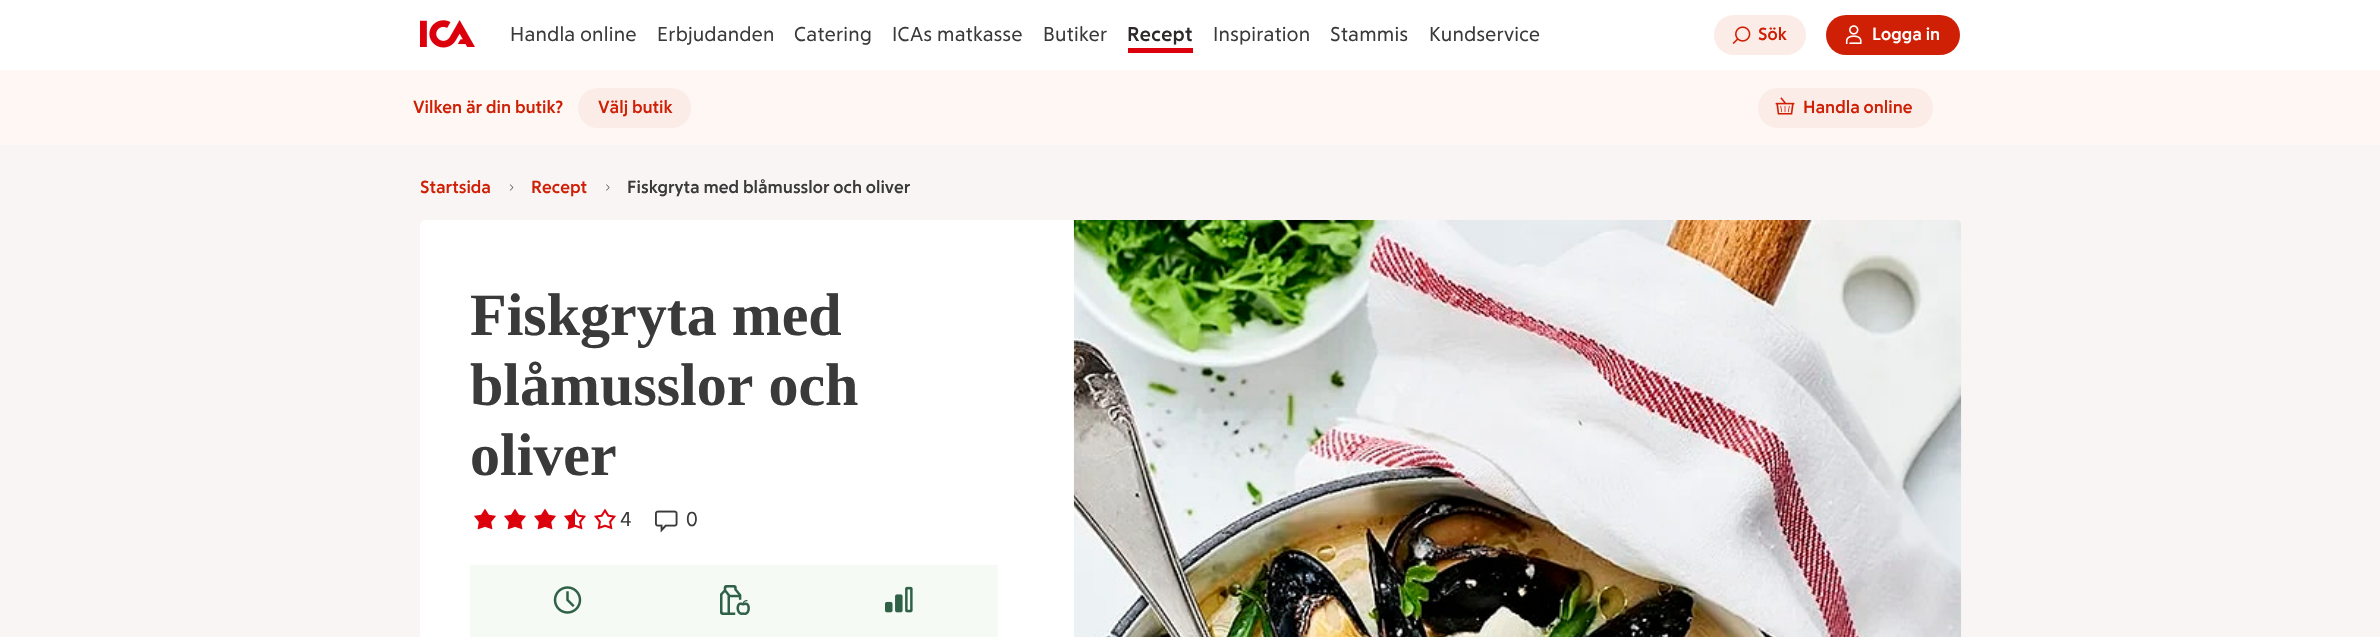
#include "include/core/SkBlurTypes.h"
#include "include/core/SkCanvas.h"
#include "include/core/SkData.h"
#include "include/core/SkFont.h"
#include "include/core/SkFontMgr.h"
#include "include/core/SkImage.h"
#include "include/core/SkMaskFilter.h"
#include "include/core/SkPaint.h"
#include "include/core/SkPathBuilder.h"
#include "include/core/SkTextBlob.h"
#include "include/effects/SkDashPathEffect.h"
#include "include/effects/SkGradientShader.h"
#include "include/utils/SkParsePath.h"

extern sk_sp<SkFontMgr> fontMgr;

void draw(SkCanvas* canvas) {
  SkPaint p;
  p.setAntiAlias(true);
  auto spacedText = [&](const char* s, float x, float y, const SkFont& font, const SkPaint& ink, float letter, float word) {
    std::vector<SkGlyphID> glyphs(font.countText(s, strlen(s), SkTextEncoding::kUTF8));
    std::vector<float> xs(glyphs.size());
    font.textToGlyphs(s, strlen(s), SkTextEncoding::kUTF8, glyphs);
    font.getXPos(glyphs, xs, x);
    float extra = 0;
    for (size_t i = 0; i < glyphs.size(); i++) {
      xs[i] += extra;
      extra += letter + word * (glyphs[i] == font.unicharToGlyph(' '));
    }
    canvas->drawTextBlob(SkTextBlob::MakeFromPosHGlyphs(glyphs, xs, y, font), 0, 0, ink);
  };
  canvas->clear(SkColorSetRGB(249, 245, 245));
  p.setColor(SK_ColorWHITE);
  canvas->drawRect(SkRect::MakeLTRB(0, 0, 2380, 70), p);
  canvas->drawImageRect(SkImages::DeferredFromEncodedData(SkData::MakeFromFileName("images/1.png")), SkRect::MakeLTRB(420, 20, 475, 48), SkSamplingOptions());
  p.setColor(SkColorSetRGB(219, 0, 11));
  canvas->drawRect(SkRect::MakeLTRB(1128, 48, 1193, 53), p);
  p.setColor(SkColorSetRGB(252, 236, 231));
  canvas->drawRoundRect(SkRect::MakeLTRB(1714, 15, 1806, 55), 20, 20, p);
  canvas->drawImageRect(SkImages::DeferredFromEncodedData(SkData::MakeFromFileName("images/2.png")), SkRect::MakeLTRB(1732, 26, 1751, 44), SkSamplingOptions());
  p.setColor(SkColorSetRGB(207, 32, 5));
  canvas->drawRoundRect(SkRect::MakeLTRB(1826, 15, 1960, 55), 20, 20, p);
  canvas->drawImageRect(SkImages::DeferredFromEncodedData(SkData::MakeFromFileName("images/3.png")), SkRect::MakeLTRB(1845, 25, 1862, 44), SkSamplingOptions());
  p.setColor(SkColorSetRGB(254, 247, 243));
  canvas->drawRect(SkRect::MakeLTRB(0, 70, 2380, 145), p);
  p.setColor(SkColorSetRGB(252, 236, 231));
  canvas->drawRoundRect(SkRect::MakeLTRB(578, 88, 691, 128), 20, 20, p);
  canvas->drawRoundRect(SkRect::MakeLTRB(1758, 88, 1933, 128), 20, 20, p);
  canvas->drawImageRect(SkImages::DeferredFromEncodedData(SkData::MakeFromFileName("images/4.png")), SkRect::MakeLTRB(1775, 97, 1795, 115), SkSamplingOptions());
  canvas->drawImageRect(SkImages::DeferredFromEncodedData(SkData::MakeFromFileName("images/5.png")), SkRect::MakeLTRB(509, 184, 514, 191), SkSamplingOptions());
  canvas->drawImageRect(SkImages::DeferredFromEncodedData(SkData::MakeFromFileName("images/6.png")), SkRect::MakeLTRB(606, 184, 610, 191), SkSamplingOptions());
  p.setColor(SK_ColorWHITE);
  canvas->drawRoundRect(SkRect::MakeLTRB(420, 220, 1960, 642), 5, 5, p);
  canvas->drawImageRect(SkImages::DeferredFromEncodedData(SkData::MakeFromFileName("images/7.png")), SkRect::MakeLTRB(474, 508, 496, 530), SkSamplingOptions());
  canvas->drawImageRect(SkImages::DeferredFromEncodedData(SkData::MakeFromFileName("images/7.png")), SkRect::MakeLTRB(504, 508, 526, 530), SkSamplingOptions());
  canvas->drawImageRect(SkImages::DeferredFromEncodedData(SkData::MakeFromFileName("images/7.png")), SkRect::MakeLTRB(534, 508, 556, 530), SkSamplingOptions());
  canvas->drawImageRect(SkImages::DeferredFromEncodedData(SkData::MakeFromFileName("images/8.png")), SkRect::MakeLTRB(564, 508, 586, 530), SkSamplingOptions());
  canvas->drawImageRect(SkImages::DeferredFromEncodedData(SkData::MakeFromFileName("images/9.png")), SkRect::MakeLTRB(594, 508, 616, 530), SkSamplingOptions());
  canvas->drawImageRect(SkImages::DeferredFromEncodedData(SkData::MakeFromFileName("images/10.png")), SkRect::MakeLTRB(655, 510, 678, 533), SkSamplingOptions());
  p.setColor(SkColorSetRGB(245, 250, 244));
  canvas->drawRect(SkRect::MakeLTRB(470, 565, 998, 637), p);
  canvas->drawImageRect(SkImages::DeferredFromEncodedData(SkData::MakeFromFileName("images/11.png")), SkRect::MakeLTRB(553, 586, 582, 614), SkSamplingOptions());
  canvas->drawImageRect(SkImages::DeferredFromEncodedData(SkData::MakeFromFileName("images/12.png")), SkRect::MakeLTRB(720, 585, 750, 615), SkSamplingOptions());
  canvas->drawImageRect(SkImages::DeferredFromEncodedData(SkData::MakeFromFileName("images/13.png")), SkRect::MakeLTRB(885, 586, 913, 613), SkSamplingOptions());
  canvas->drawImageRect(SkImages::DeferredFromEncodedData(SkData::MakeFromFileName("images/14.png")), SkRect::MakeLTRB(1073, 220, 1962, 637), SkSamplingOptions());
  SkFont font1(fontMgr->matchFamilyStyle("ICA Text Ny", SkFontStyle::Normal()), 20);
  font1.setSubpixel(true);
  p.setColor(SkColorSetRGB(58, 58, 58));
  spacedText("Handla online", 510, 41, font1, p, 0.25f, 0);
  spacedText("Erbjudanden", 657, 41, font1, p, 0.25f, 0);
  spacedText("Catering", 794, 41, font1, p, 0.25f, 0);
  spacedText("ICAs matkasse", 892, 41, font1, p, 0.25f, 0);
  spacedText("Butiker", 1043, 41, font1, p, 0.25f, 0);
  SkFont font2(fontMgr->matchFamilyStyle("ICA Text Ny", SkFontStyle::Bold()), 20);
  font2.setSubpixel(true);
  p.setColor(SkColorSetRGB(46, 41, 41));
  spacedText("Recept", 1127, 41, font2, p, 0.25f, 0);
  p.setColor(SkColorSetRGB(58, 58, 58));
  spacedText("Inspiration", 1213, 41, font1, p, 0.25f, 0);
  spacedText("Stammis", 1330, 41, font1, p, 0.25f, 0);
  spacedText("Kundservice", 1429, 41, font1, p, 0.25f, 0);
  SkFont font3(fontMgr->matchFamilyStyle("ICA Text Ny", SkFontStyle::Bold()), 17.5f);
  font3.setSubpixel(true);
  p.setColor(SkColorSetRGB(207, 32, 5));
  canvas->drawString("Sök", 1758, 40, font3, p);
  p.setColor(SK_ColorWHITE);
  canvas->drawString("Logga in", 1872, 40, font3, p);
  p.setColor(SkColorSetRGB(207, 32, 5));
  canvas->drawString("Vilken är din butik?", 413, 113, font3, p);
  canvas->drawString("Välj butik", 598, 113, font3, p);
  canvas->drawString("Handla online", 1803, 113, font3, p);
  canvas->drawString("Startsida", 420, 193, font3, p);
  canvas->drawString("Recept", 531, 193, font3, p);
  p.setColor(SkColorSetRGB(58, 58, 58));
  canvas->drawString("Fiskgryta med blåmusslor och oliver", 627, 193, font3, p);
  SkFont font4(fontMgr->matchFamilyStyle("Liberation Serif", SkFontStyle::Bold()), 60);
  font4.setSubpixel(true);
  canvas->drawString("Fiskgryta med", 470, 335, font4, p);
  canvas->drawString("blåmusslor och", 470, 405, font4, p);
  canvas->drawString("oliver", 470, 475, font4, p);
  canvas->drawString("4", 620, 526, font1, p);
  canvas->drawString("0", 686, 526, font1, p);
}
